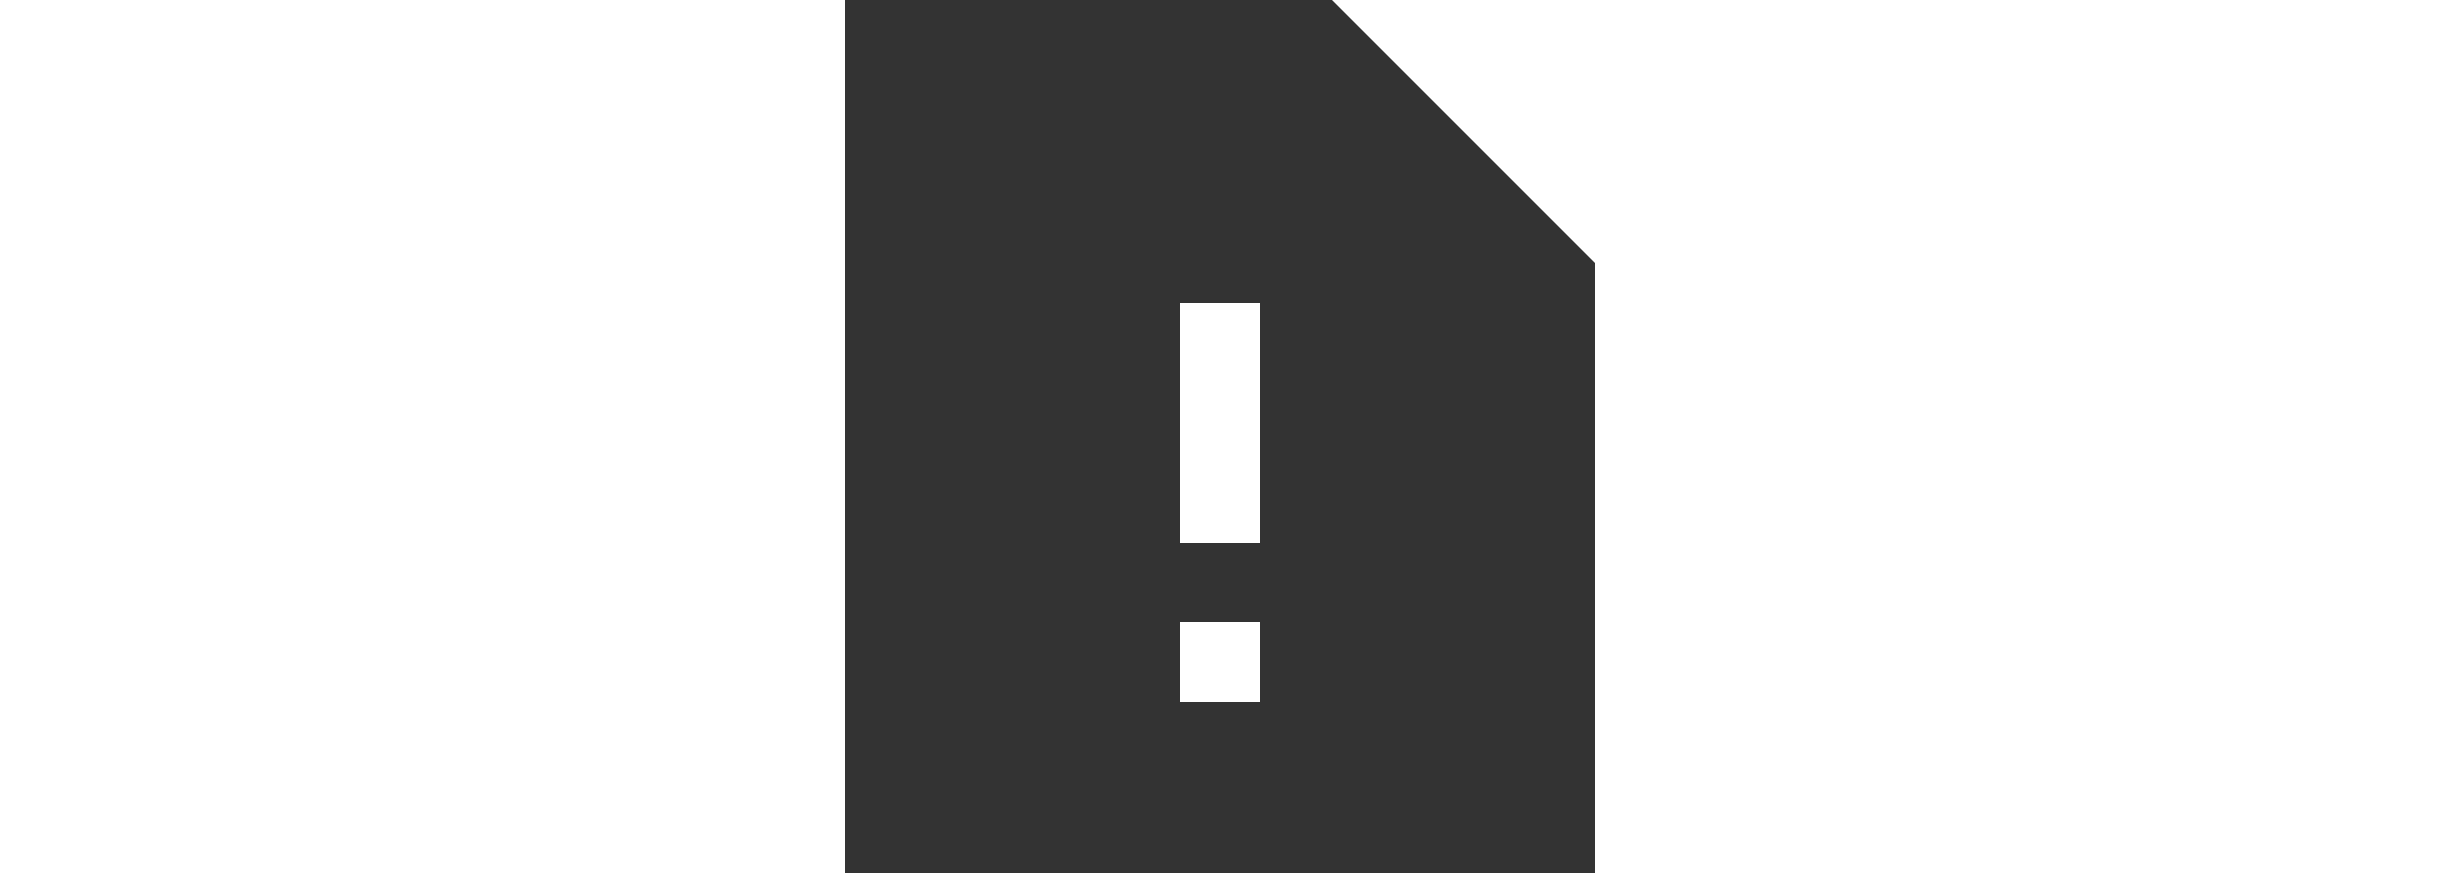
#include "include/core/SkBlurTypes.h"
#include "include/core/SkCanvas.h"
#include "include/core/SkData.h"
#include "include/core/SkFont.h"
#include "include/core/SkFontMgr.h"
#include "include/core/SkImage.h"
#include "include/core/SkMaskFilter.h"
#include "include/core/SkPaint.h"
#include "include/core/SkPathBuilder.h"
#include "include/core/SkTextBlob.h"
#include "include/effects/SkDashPathEffect.h"
#include "include/effects/SkGradientShader.h"
#include "include/utils/SkParsePath.h"

extern sk_sp<SkFontMgr> fontMgr;

void draw(SkCanvas* canvas) {
  SkPaint p;
  p.setAntiAlias(true);
  canvas->clear(SK_ColorWHITE);
  p.setColor(SkColorSetRGB(51, 51, 51));
  canvas->drawPath(SkPathBuilder(SkPathFillType::kEvenOdd).moveTo(845, 0).lineTo(1332, 0).lineTo(1595, 263).lineTo(1595, 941).lineTo(845, 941).close().moveTo(1180, 303).lineTo(1260, 303).lineTo(1260, 543).lineTo(1180, 543).close().moveTo(1180, 622).lineTo(1260, 622).lineTo(1260, 702).lineTo(1180, 702).close().detach(), p);
}
